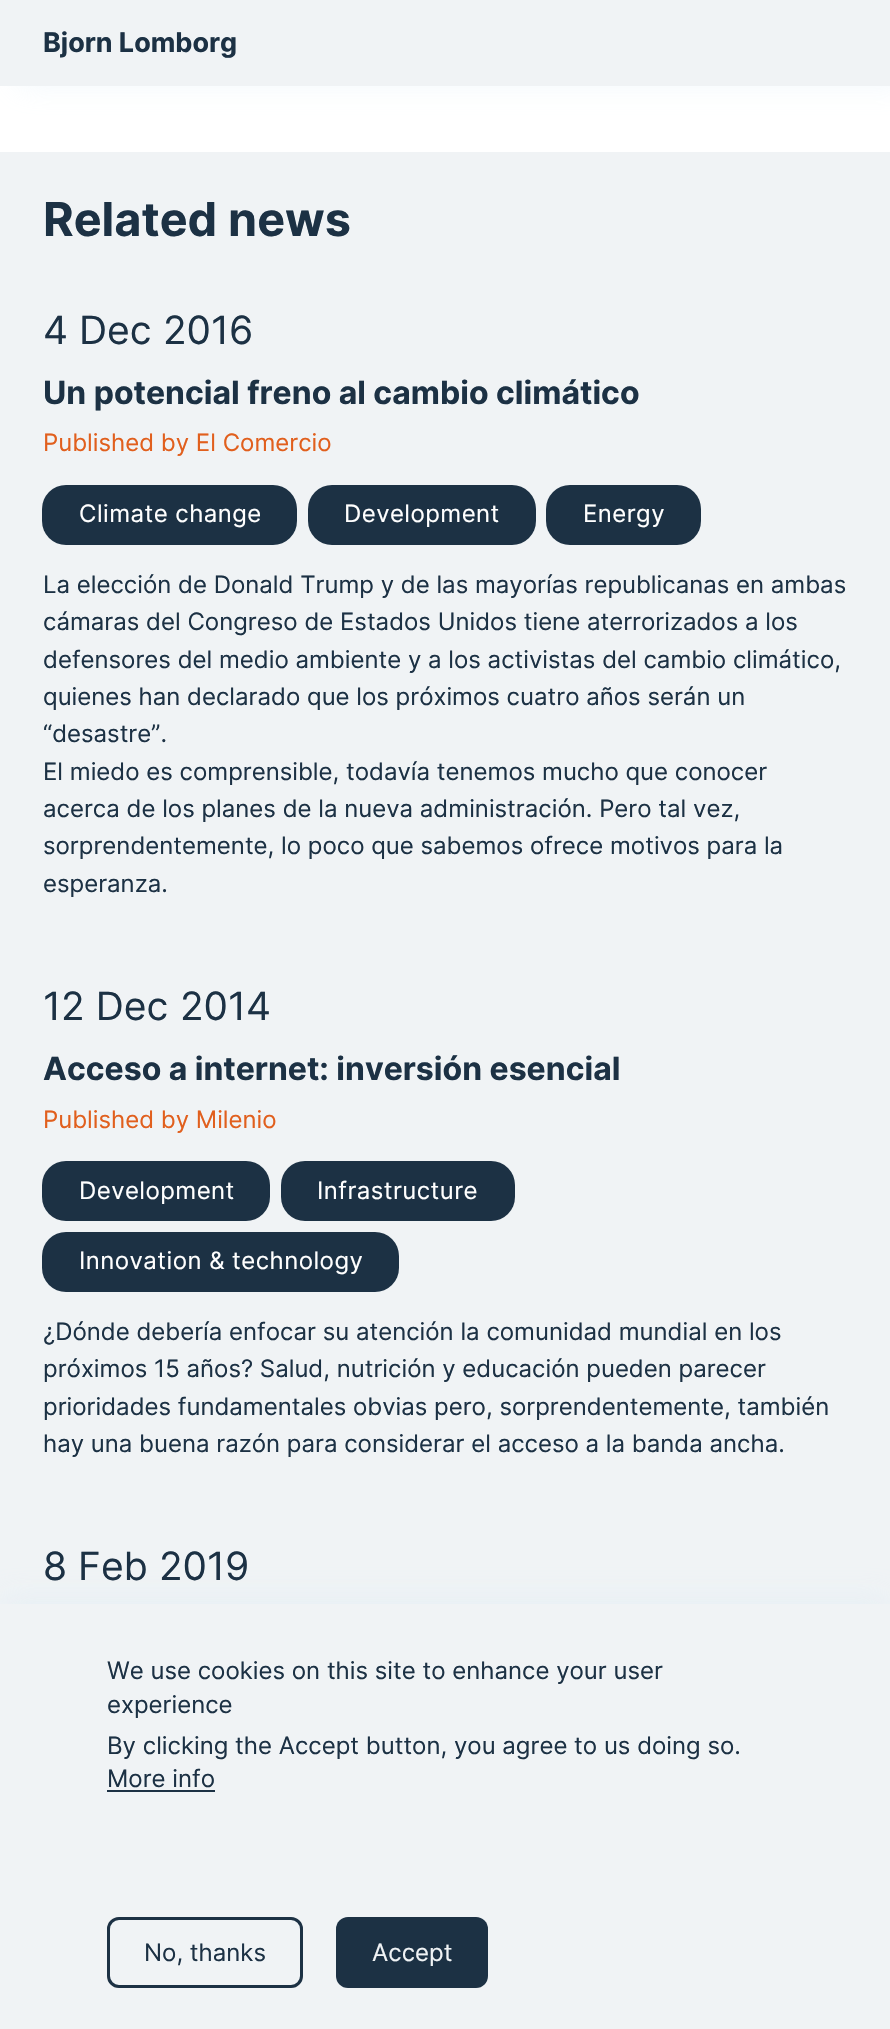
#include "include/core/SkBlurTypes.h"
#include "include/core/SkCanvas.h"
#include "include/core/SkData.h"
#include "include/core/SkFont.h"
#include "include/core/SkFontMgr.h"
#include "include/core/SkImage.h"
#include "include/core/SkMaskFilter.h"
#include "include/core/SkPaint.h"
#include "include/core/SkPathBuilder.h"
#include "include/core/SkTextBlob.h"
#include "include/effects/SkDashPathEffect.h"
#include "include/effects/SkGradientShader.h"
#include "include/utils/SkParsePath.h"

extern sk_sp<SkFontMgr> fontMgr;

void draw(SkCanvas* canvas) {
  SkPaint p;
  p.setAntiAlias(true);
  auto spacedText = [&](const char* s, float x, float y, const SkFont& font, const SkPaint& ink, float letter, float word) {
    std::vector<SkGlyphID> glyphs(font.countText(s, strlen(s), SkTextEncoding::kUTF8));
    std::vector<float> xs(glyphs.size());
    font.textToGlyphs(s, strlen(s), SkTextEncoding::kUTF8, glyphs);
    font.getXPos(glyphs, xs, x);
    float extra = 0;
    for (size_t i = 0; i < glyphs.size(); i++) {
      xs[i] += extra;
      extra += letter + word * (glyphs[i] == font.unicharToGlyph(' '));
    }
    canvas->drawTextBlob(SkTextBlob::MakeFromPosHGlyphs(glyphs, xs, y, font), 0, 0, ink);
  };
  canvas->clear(SK_ColorWHITE);
  p.setColor(SkColorSetARGB(64, 204, 229, 242));
  p.setMaskFilter(SkMaskFilter::MakeBlur(kNormal_SkBlurStyle, 15));
  canvas->drawRect(SkRect::MakeLTRB(18, 0, 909, 86), p);
  p.setMaskFilter(nullptr);
  p.setColor(SkColorSetRGB(240, 243, 245));
  canvas->drawRect(SkRect::MakeLTRB(0, 0, 890, 86), p);
  canvas->drawRect(SkRect::MakeLTRB(0, 152, 890, 1604), p);
  p.setColor(SkColorSetRGB(28, 49, 68));
  canvas->drawRoundRect(SkRect::MakeLTRB(42, 485, 297, 545), 24, 24, p);
  canvas->drawRoundRect(SkRect::MakeLTRB(308, 485, 536, 545), 24, 24, p);
  canvas->drawRoundRect(SkRect::MakeLTRB(546, 485, 701, 545), 24, 24, p);
  canvas->drawRoundRect(SkRect::MakeLTRB(42, 1161, 270, 1221), 24, 24, p);
  canvas->drawRoundRect(SkRect::MakeLTRB(281, 1161, 515, 1221), 24, 24, p);
  canvas->drawRoundRect(SkRect::MakeLTRB(42, 1232, 399, 1292), 24, 24, p);
  p.setColor(SkColorSetARGB(64, 204, 229, 242));
  p.setMaskFilter(SkMaskFilter::MakeBlur(kNormal_SkBlurStyle, 15));
  canvas->drawRect(SkRect::MakeLTRB(0, 1598, 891, 2024), p);
  p.setMaskFilter(nullptr);
  p.setColor(SkColorSetRGB(240, 243, 245));
  canvas->drawRect(SkRect::MakeLTRB(0, 1604, 890, 2029), p);
  p.setColor(SkColorSetRGB(28, 49, 68));
  canvas->drawRect(SkRect::MakeLTRB(107, 1790, 215, 1792), p);
  p.setStyle(SkPaint::kStroke_Style);
  p.setStrokeWidth(2);
  p.setColor(SkColorSetRGB(220, 220, 220));
  canvas->drawRoundRect(SkRect::MakeLTRB(108, 1918, 302, 1987), 11, 11, p);
  p.setStrokeWidth(3);
  p.setColor(SkColorSetRGB(28, 49, 68));
  canvas->drawRoundRect(SkRect::MakeLTRB(108.5f, 1918.5f, 301.5f, 1986.5f), 10.5f, 10.5f, p);
  p.setStyle(SkPaint::kFill_Style);
  canvas->drawRoundRect(SkRect::MakeLTRB(336, 1917, 488, 1988), 12, 12, p);
  SkFont font1(fontMgr->matchFamilyStyle("Inter", SkFontStyle::Bold()), 27);
  font1.setSubpixel(true);
  canvas->drawString("Bjorn Lomborg", 43, 52, font1, p);
  SkFont font2(fontMgr->matchFamilyStyle("Inter", SkFontStyle::Bold()), 46.75f);
  font2.setSubpixel(true);
  canvas->drawString("Related news", 43, 236, font2, p);
  SkFont font3(fontMgr->matchFamilyStyle("Inter", SkFontStyle::Normal()), 39);
  font3.setSubpixel(true);
  canvas->drawString("4 Dec", 43, 344, font3, p);
  canvas->drawString("2016", 163, 344, font3, p);
  SkFont font4(fontMgr->matchFamilyStyle("Inter", SkFontStyle::Bold()), 32);
  font4.setSubpixel(true);
  canvas->drawString("Un potencial freno al cambio climático", 43, 404, font4, p);
  SkFont font5(fontMgr->matchFamilyStyle("Inter", SkFontStyle::Normal()), 24);
  font5.setSubpixel(true);
  p.setColor(SkColorSetRGB(225, 95, 29));
  canvas->drawString("Published by El Comercio", 43, 451, font5, p);
  p.setColor(SK_ColorWHITE);
  spacedText("Climate change", 79, 522, font5, p, 0.45f, 0);
  spacedText("Development", 344, 522, font5, p, 0.45f, 0);
  spacedText("Energy", 583, 522, font5, p, 0.45f, 0);
  p.setColor(SkColorSetRGB(28, 49, 68));
  canvas->drawString("La elección de Donald Trump y de las mayorías republicanas en ambas", 43, 593, font5, p);
  canvas->drawString("cámaras del Congreso de Estados Unidos tiene aterrorizados a los", 43, 630, font5, p);
  canvas->drawString("defensores del medio ambiente y a los activistas del cambio climático,", 43, 668, font5, p);
  canvas->drawString("quienes han declarado que los próximos cuatro años serán un", 43, 705, font5, p);
  canvas->drawString("“desastre”.", 43, 742, font5, p);
  canvas->drawString("El miedo es comprensible, todavía tenemos mucho que conocer", 43, 780, font5, p);
  canvas->drawString("acerca de los planes de la nueva administración. Pero tal vez,", 43, 817, font5, p);
  canvas->drawString("sorprendentemente, lo poco que sabemos ofrece motivos para la", 43, 854, font5, p);
  canvas->drawString("esperanza.", 43, 892, font5, p);
  canvas->drawString("12 Dec", 43, 1020, font3, p);
  canvas->drawString("2014", 180, 1020, font3, p);
  canvas->drawString("Acceso a internet: inversión esencial", 43, 1080, font4, p);
  p.setColor(SkColorSetRGB(225, 95, 29));
  canvas->drawString("Published by Milenio", 43, 1128, font5, p);
  p.setColor(SK_ColorWHITE);
  spacedText("Development", 79, 1199, font5, p, 0.45f, 0);
  spacedText("Infrastructure", 317, 1199, font5, p, 0.45f, 0);
  spacedText("Innovation & technology", 79, 1269, font5, p, 0.45f, 0);
  p.setColor(SkColorSetRGB(28, 49, 68));
  canvas->drawString("¿Dónde debería enfocar su atención la comunidad mundial en los", 43, 1340, font5, p);
  canvas->drawString("próximos 15 años? Salud, nutrición y educación pueden parecer", 43, 1377, font5, p);
  canvas->drawString("prioridades fundamentales obvias pero, sorprendentemente, también", 43, 1415, font5, p);
  canvas->drawString("hay una buena razón para considerar el acceso a la banda ancha.", 43, 1452, font5, p);
  canvas->drawString("8 Feb", 43, 1580, font3, p);
  canvas->drawString("2019", 159, 1580, font3, p);
  canvas->drawString("We use cookies on this site to enhance your user", 107, 1679, font5, p);
  canvas->drawString("experience", 107, 1713, font5, p);
  canvas->drawString("By clicking the Accept button, you agree to us doing so.", 107, 1754, font5, p);
  canvas->drawString("More info", 107, 1787, font5, p);
  canvas->drawString("No, thanks", 144, 1961, font5, p);
  p.setColor(SkColorSetRGB(240, 243, 245));
  canvas->drawString("Accept", 372, 1961, font5, p);
}
